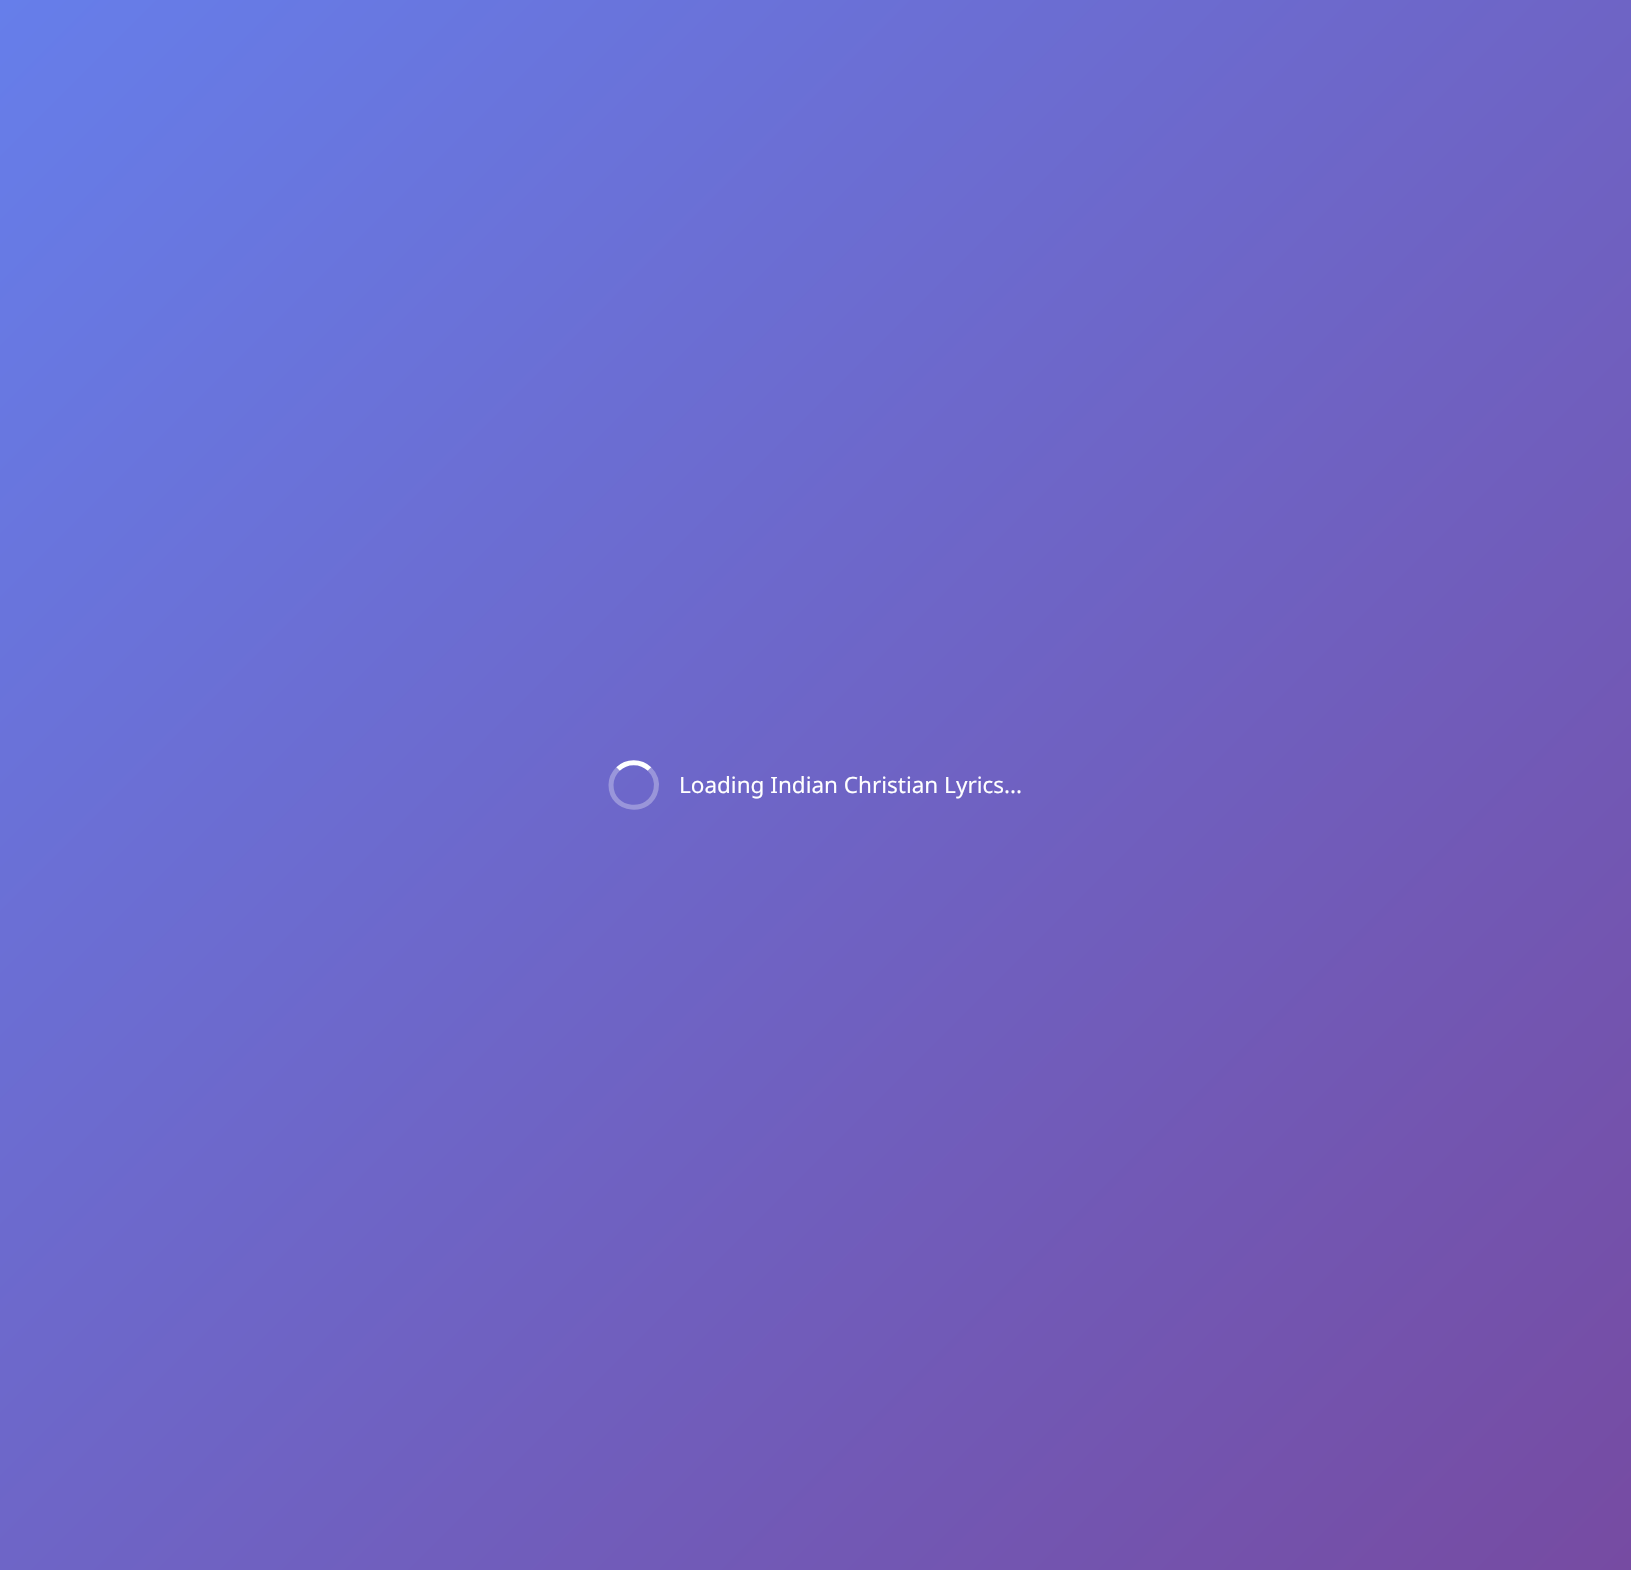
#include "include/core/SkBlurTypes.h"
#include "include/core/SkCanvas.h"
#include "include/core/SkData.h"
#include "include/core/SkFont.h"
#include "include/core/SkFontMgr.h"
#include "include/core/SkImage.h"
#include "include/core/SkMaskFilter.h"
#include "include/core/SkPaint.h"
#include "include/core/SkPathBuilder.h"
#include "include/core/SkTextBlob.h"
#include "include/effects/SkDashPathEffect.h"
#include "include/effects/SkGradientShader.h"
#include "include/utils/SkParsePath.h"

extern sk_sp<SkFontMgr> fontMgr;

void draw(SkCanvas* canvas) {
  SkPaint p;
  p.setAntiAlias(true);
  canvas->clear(SK_ColorWHITE);
  {
    const SkColor colors[] = {SkColorSetRGB(102, 126, 234), SkColorSetRGB(118, 75, 162)};
    const float stops[] = {0, 1};
    const SkPoint ends[] = {{15, -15}, {1616, 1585}};
    p.setShader(SkGradientShader::MakeLinear(ends, colors, stops, 2, SkTileMode::kClamp));
    p.setAlpha(255);
  }
  canvas->drawRect(SkRect::MakeLTRB(0, 0, 1631, 1570), p);
  p.setStyle(SkPaint::kStroke_Style);
  p.setStrokeWidth(5);
  p.setShader(nullptr);
  p.setColor(SK_ColorWHITE);
  canvas->drawPath(SkPathBuilder().moveTo(618, 769).cubicTo(626.5f, 760.5f, 641, 760.5f, 649.5f, 769).detach(), p);
  p.setColor(SkColorSetARGB(77, 255, 255, 255));
  canvas->drawPath(SkPathBuilder().moveTo(649.5f, 769).cubicTo(655, 774.5f, 657.5f, 782, 656, 789.5f).cubicTo(650.5f, 815.5f, 611, 812, 611, 785).cubicTo(611, 779, 613.5f, 773.5f, 618, 769).detach(), p);
  SkFont font1(fontMgr->matchFamilyStyle("Noto Sans", SkFontStyle::Normal()), 22.5f);
  font1.setSubpixel(true);
  p.setStyle(SkPaint::kFill_Style);
  p.setColor(SK_ColorWHITE);
  canvas->drawString("Loading Indian Christian Lyrics...", 679, 793, font1, p);
}
